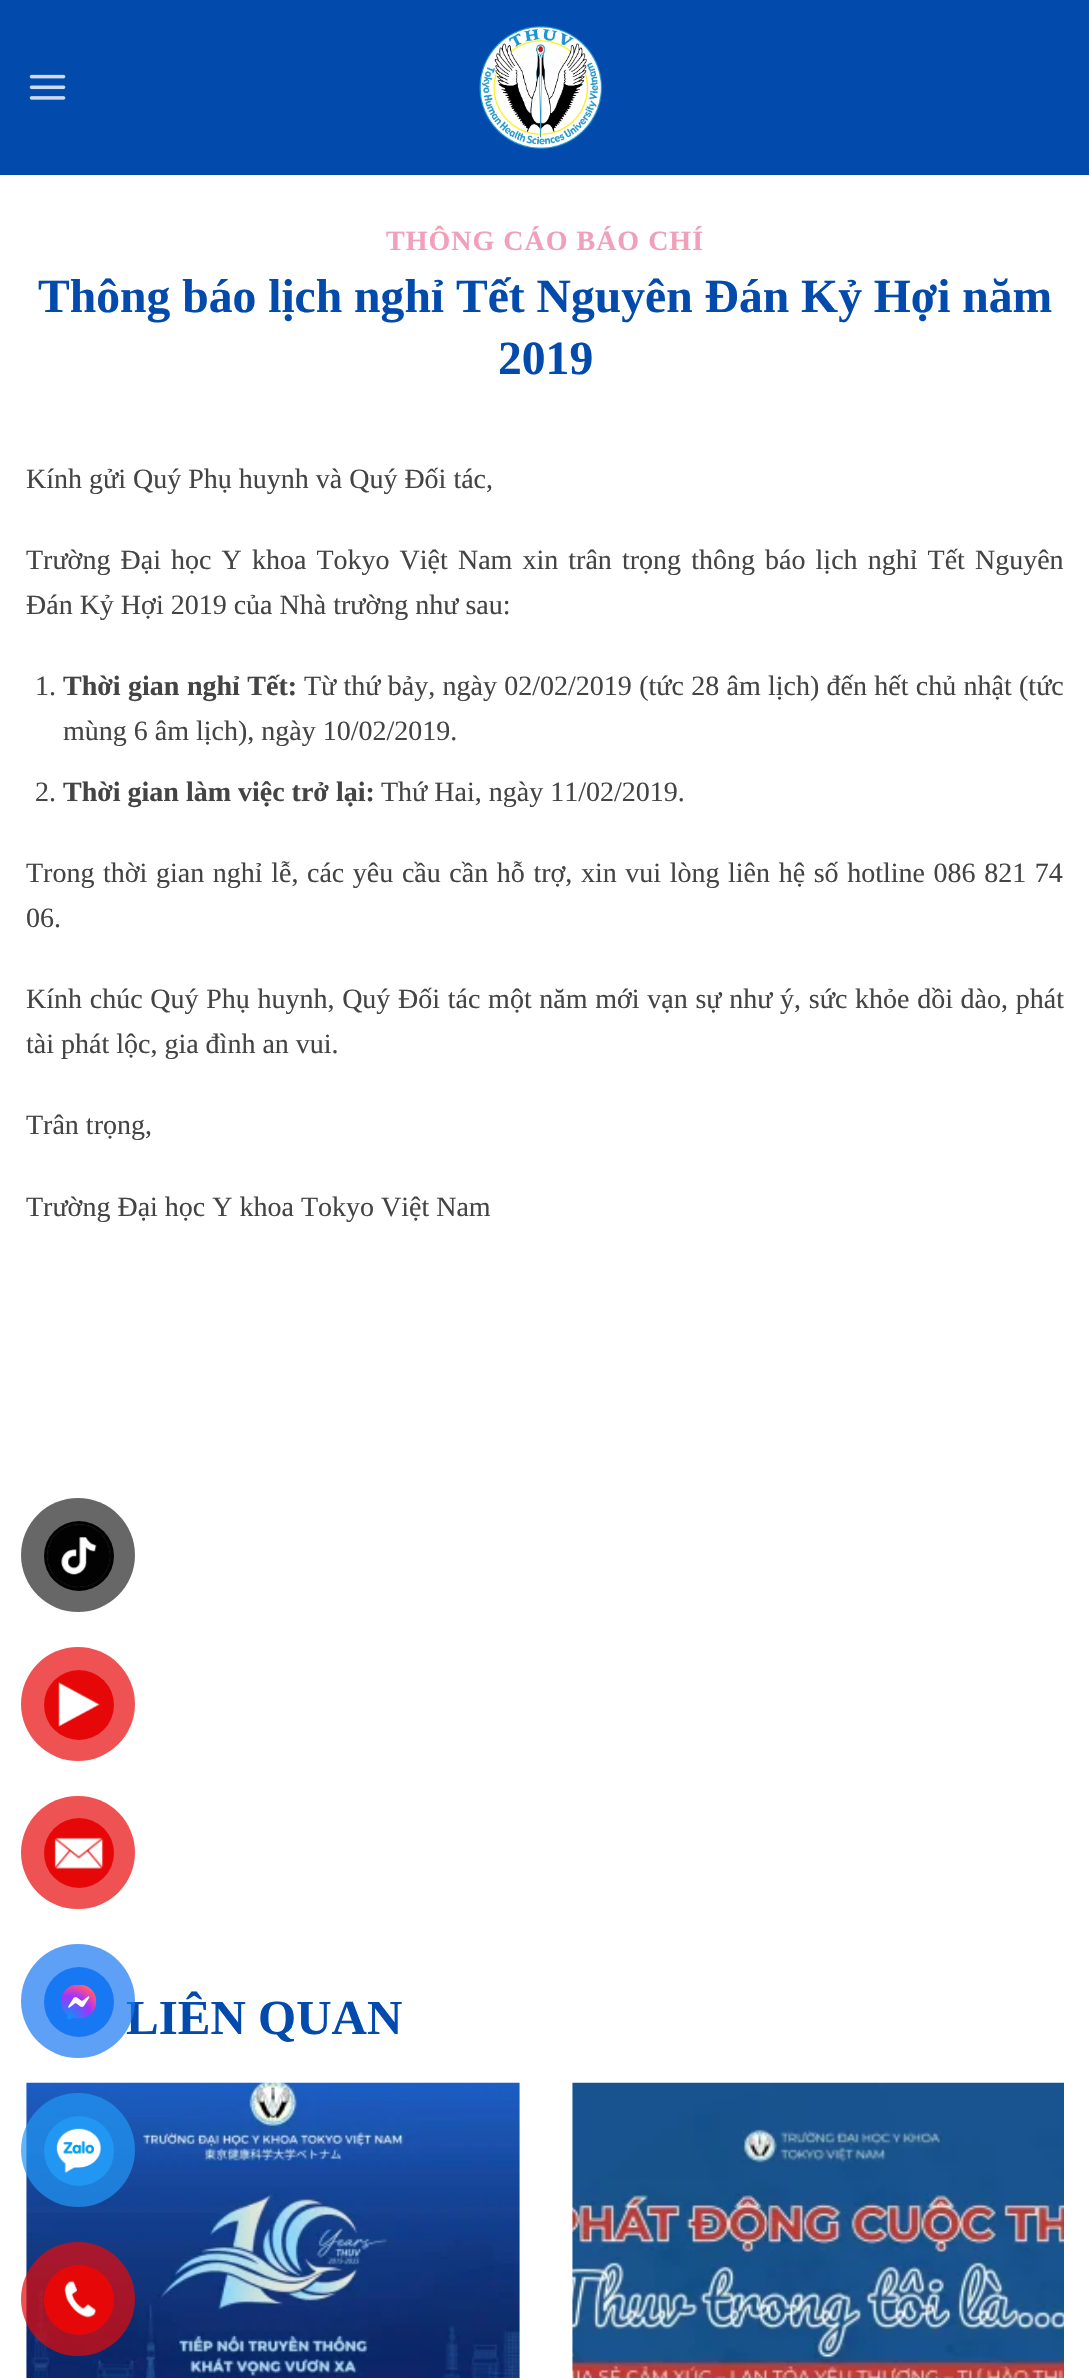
#include "include/core/SkBlurTypes.h"
#include "include/core/SkCanvas.h"
#include "include/core/SkData.h"
#include "include/core/SkFont.h"
#include "include/core/SkFontMgr.h"
#include "include/core/SkImage.h"
#include "include/core/SkMaskFilter.h"
#include "include/core/SkPaint.h"
#include "include/core/SkPathBuilder.h"
#include "include/core/SkTextBlob.h"
#include "include/effects/SkDashPathEffect.h"
#include "include/effects/SkGradientShader.h"
#include "include/utils/SkParsePath.h"

extern sk_sp<SkFontMgr> fontMgr;

void draw(SkCanvas* canvas) {
  SkPaint p;
  p.setAntiAlias(true);
  auto spacedText = [&](const char* s, float x, float y, const SkFont& font, const SkPaint& ink, float letter, float word) {
    std::vector<SkGlyphID> glyphs(font.countText(s, strlen(s), SkTextEncoding::kUTF8));
    std::vector<float> xs(glyphs.size());
    font.textToGlyphs(s, strlen(s), SkTextEncoding::kUTF8, glyphs);
    font.getXPos(glyphs, xs, x);
    float extra = 0;
    for (size_t i = 0; i < glyphs.size(); i++) {
      xs[i] += extra;
      extra += letter + word * (glyphs[i] == font.unicharToGlyph(' '));
    }
    canvas->drawTextBlob(SkTextBlob::MakeFromPosHGlyphs(glyphs, xs, y, font), 0, 0, ink);
  };
  canvas->clear(SK_ColorWHITE);
  p.setColor(SkColorSetRGB(2, 75, 172));
  canvas->drawRect(SkRect::MakeLTRB(0, 0, 1089, 175), p);
  canvas->drawImageRect(SkImages::DeferredFromEncodedData(SkData::MakeFromFileName("images/1.png")), SkRect::MakeLTRB(29, 74, 66, 100), SkSamplingOptions());
  canvas->drawImageRect(SkImages::DeferredFromEncodedData(SkData::MakeFromFileName("images/2.png")), SkRect::MakeLTRB(479, 26, 602, 149), SkSamplingOptions());
  canvas->drawImageRect(SkImages::DeferredFromEncodedData(SkData::MakeFromFileName("images/3.png")), SkRect::MakeLTRB(26, 2082, 520, 2378), SkSamplingOptions());
  canvas->drawImageRect(SkImages::DeferredFromEncodedData(SkData::MakeFromFileName("images/4.png")), SkRect::MakeLTRB(572, 2082, 1064, 2378), SkSamplingOptions());
  p.setColor(SkColorSetRGB(103, 103, 103));
  canvas->drawCircle(78, 1555, 57, p);
  p.setColor(SkColorSetRGB(2, 2, 2));
  canvas->drawCircle(79, 1556, 35, p);
  canvas->drawImageRect(SkImages::DeferredFromEncodedData(SkData::MakeFromFileName("images/5.png")), SkRect::MakeLTRB(47, 1524, 111, 1588), SkSamplingOptions());
  p.setColor(SkColorSetRGB(238, 82, 82));
  canvas->drawCircle(78, 1704, 57, p);
  p.setColor(SkColorSetRGB(230, 8, 8));
  canvas->drawCircle(79, 1705, 35, p);
  canvas->drawImageRect(SkImages::DeferredFromEncodedData(SkData::MakeFromFileName("images/6.png")), SkRect::MakeLTRB(58, 1682, 100, 1727), SkSamplingOptions());
  p.setColor(SkColorSetRGB(238, 82, 82));
  canvas->drawRoundRect(SkRect::MakeLTRB(21, 1796, 135, 1909), 56.5f, 56.5f, p);
  p.setColor(SkColorSetRGB(230, 8, 8));
  canvas->drawCircle(79, 1853, 35, p);
  canvas->drawImageRect(SkImages::DeferredFromEncodedData(SkData::MakeFromFileName("images/7.png")), SkRect::MakeLTRB(54, 1837, 104, 1869), SkSamplingOptions());
  p.setColor(SkColorSetARGB(179, 33, 150, 243));
  canvas->drawCircle(78, 2150, 57, p);
  p.setColor(SkColorSetRGB(33, 150, 243));
  canvas->drawCircle(79, 2151, 35, p);
  canvas->drawImageRect(SkImages::DeferredFromEncodedData(SkData::MakeFromFileName("images/9.png")), SkRect::MakeLTRB(56, 2128, 101, 2173), SkSamplingOptions());
  p.setColor(SkColorSetARGB(179, 230, 8, 8));
  canvas->drawCircle(78, 2299, 57, p);
  p.setColor(SkColorSetRGB(230, 8, 8));
  canvas->drawCircle(79, 2300, 35, p);
  canvas->drawImageRect(SkImages::DeferredFromEncodedData(SkData::MakeFromFileName("images/10.png")), SkRect::MakeLTRB(64, 2280, 96, 2318), SkSamplingOptions());
  SkFont font1(fontMgr->matchFamilyStyle("Liberation Serif", SkFontStyle::Bold()), 28);
  font1.setSubpixel(true);
  p.setColor(SkColorSetRGB(241, 160, 185));
  spacedText("THÔNG CÁO BÁO CHÍ", 386, 250, font1, p, 1, 0);
  SkFont font2(fontMgr->matchFamilyStyle("Liberation Serif", SkFontStyle::Bold()), 47.6f);
  font2.setSubpixel(true);
  p.setColor(SkColorSetRGB(2, 75, 172));
  canvas->drawString("Thông báo lịch nghỉ Tết Nguyên Đán Kỷ Hợi năm", 38, 312, font2, p);
  canvas->drawString("2019", 498, 374, font2, p);
  SkFont font3(fontMgr->matchFamilyStyle("Liberation Serif", SkFontStyle::Normal()), 28);
  font3.setSubpixel(true);
  p.setColor(SkColorSetRGB(68, 68, 68));
  canvas->drawString("Kính gửi Quý Phụ huynh và Quý Đối tác,", 26, 488, font3, p);
  spacedText("Trường Đại học Y khoa Tokyo Việt Nam xin trân trọng thông báo lịch nghỉ Tết Nguyên", 26, 569, font3, p, 0, 3.1f);
  canvas->drawString("Đán Kỷ Hợi 2019 của Nhà trường như sau:", 26, 614, font3, p);
  canvas->drawString("1.", 35, 695, font3, p);
  spacedText("Thời gian nghỉ Tết:", 63, 695, font1, p, 0, 0.5f);
  spacedText("Từ thứ bảy, ngày 02/02/2019 (tức 28 âm lịch) đến hết chủ nhật (tức", 304, 695, font3, p, 0, 0.3f);
  canvas->drawString("mùng 6 âm lịch), ngày 10/02/2019.", 63, 740, font3, p);
  canvas->drawString("2.", 35, 801, font3, p);
  canvas->drawString("Thời gian làm việc trở lại:", 63, 801, font1, p);
  canvas->drawString("Thứ Hai, ngày 11/02/2019.", 381, 801, font3, p);
  spacedText("Trong thời gian nghỉ lễ, các yêu cầu cần hỗ trợ, xin vui lòng liên hệ số hotline 086 821 74", 26, 882, font3, p, 0, 1.6f);
  canvas->drawString("06.", 26, 927, font3, p);
  spacedText("Kính chúc Quý Phụ huynh, Quý Đối tác một năm mới vạn sự như ý, sức khỏe dồi dào, phát", 26, 1008, font3, p, 0, 0.7f);
  canvas->drawString("tài phát lộc, gia đình an vui.", 26, 1053, font3, p);
  canvas->drawString("Trân trọng,", 26, 1134, font3, p);
  canvas->drawString("Trường Đại học Y khoa Tokyo Việt Nam", 26, 1216, font3, p);
  SkFont font4(fontMgr->matchFamilyStyle("Liberation Serif", SkFontStyle::Bold()), 49);
  font4.setSubpixel(true);
  p.setColor(SkColorSetRGB(2, 75, 172));
  canvas->drawString("LIÊN QUAN", 126, 2034, font4, p);
  p.setColor(SkColorSetARGB(179, 24, 119, 242));
  canvas->drawCircle(78, 2001, 57, p);
  p.setColor(SkColorSetRGB(24, 119, 242));
  canvas->drawCircle(79, 2002, 35, p);
  canvas->drawImageRect(SkImages::DeferredFromEncodedData(SkData::MakeFromFileName("images/8.png")), SkRect::MakeLTRB(61, 1985, 96, 2020), SkSamplingOptions());
}
